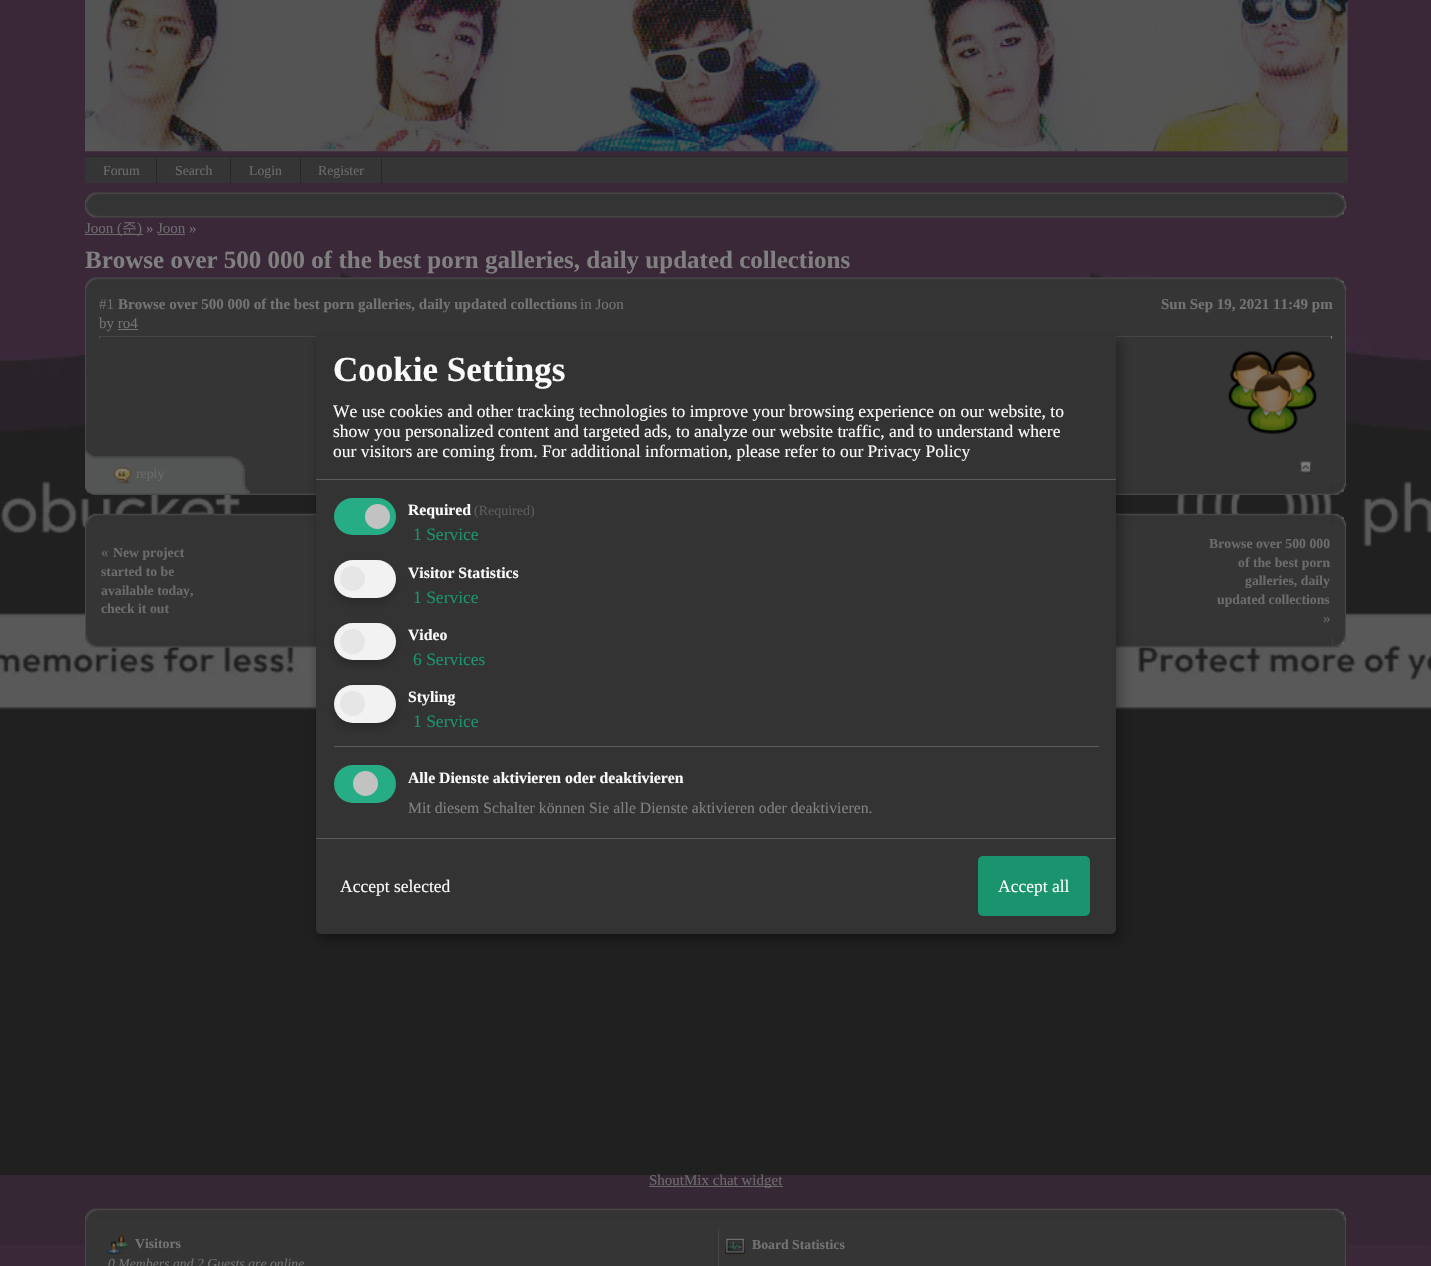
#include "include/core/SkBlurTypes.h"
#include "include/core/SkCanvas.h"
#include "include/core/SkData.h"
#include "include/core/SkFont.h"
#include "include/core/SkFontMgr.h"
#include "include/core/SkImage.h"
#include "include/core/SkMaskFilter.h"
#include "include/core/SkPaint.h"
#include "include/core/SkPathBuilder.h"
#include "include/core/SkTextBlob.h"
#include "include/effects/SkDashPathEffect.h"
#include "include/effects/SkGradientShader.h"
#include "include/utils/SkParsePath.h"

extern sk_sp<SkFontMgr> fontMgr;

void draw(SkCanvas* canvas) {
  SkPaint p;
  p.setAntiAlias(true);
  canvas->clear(SK_ColorWHITE);
  canvas->drawImageRect(SkImages::DeferredFromEncodedData(SkData::MakeFromFileName("images/1.png")), SkRect::MakeLTRB(0, 0, 1431, 1266), SkSamplingOptions());
  canvas->drawImageRect(SkImages::DeferredFromEncodedData(SkData::MakeFromFileName("images/2.png")), SkRect::MakeLTRB(85, 0, 1348, 152), SkSamplingOptions());
  p.setColor(SkColorSetRGB(53, 53, 53));
  canvas->drawRect(SkRect::MakeLTRB(85, 157, 1348, 183), p);
  p.setColor(SkColorSetRGB(40, 40, 40));
  canvas->drawRect(SkRect::MakeLTRB(85, 156, 1348, 157), p);
  canvas->drawRect(SkRect::MakeLTRB(156, 158, 157, 183), p);
  canvas->drawRect(SkRect::MakeLTRB(230, 158, 231, 183), p);
  canvas->drawRect(SkRect::MakeLTRB(300, 158, 301, 183), p);
  canvas->drawRect(SkRect::MakeLTRB(381, 158, 382, 183), p);
  canvas->drawImageRect(SkImages::DeferredFromEncodedData(SkData::MakeFromFileName("images/3.png")), SkRect::MakeLTRB(85, 192, 1333, 204), SkSamplingOptions());
  p.setColor(SkColorSetRGB(53, 53, 53));
  canvas->drawRect(SkRect::MakeLTRB(85, 204, 1333, 207), p);
  canvas->drawImageRect(SkImages::DeferredFromEncodedData(SkData::MakeFromFileName("images/4.png")), SkRect::MakeLTRB(1332, 192, 1347, 205), SkSamplingOptions());
  p.setColor(SkColorSetRGB(73, 73, 73));
  canvas->drawRect(SkRect::MakeLTRB(85, 204, 86, 207), p);
  canvas->drawImageRect(SkImages::DeferredFromEncodedData(SkData::MakeFromFileName("images/5.png")), SkRect::MakeLTRB(85, 205, 1333, 218), SkSamplingOptions());
  canvas->drawImageRect(SkImages::DeferredFromEncodedData(SkData::MakeFromFileName("images/6.png")), SkRect::MakeLTRB(1332, 205, 1347, 218), SkSamplingOptions());
  p.setColor(SkColorSetRGB(107, 107, 107));
  canvas->drawRect(SkRect::MakeLTRB(85, 234, 143, 235), p);
  canvas->drawRect(SkRect::MakeLTRB(158, 234, 185, 235), p);
  canvas->drawImageRect(SkImages::DeferredFromEncodedData(SkData::MakeFromFileName("images/7.png")), SkRect::MakeLTRB(85, 277, 1333, 289), SkSamplingOptions());
  p.setColor(SkColorSetRGB(53, 53, 53));
  canvas->drawRect(SkRect::MakeLTRB(86, 289, 1345, 484), p);
  p.setColor(SkColorSetRGB(73, 73, 73));
  canvas->drawRect(SkRect::MakeLTRB(1345, 289, 1346, 484), p);
  canvas->drawImageRect(SkImages::DeferredFromEncodedData(SkData::MakeFromFileName("images/4.png")), SkRect::MakeLTRB(1332, 277, 1347, 290), SkSamplingOptions());
  canvas->drawRect(SkRect::MakeLTRB(85, 289, 86, 451), p);
  p.setColor(SkColorSetRGB(115, 115, 115));
  canvas->drawRect(SkRect::MakeLTRB(118, 329, 138, 330), p);
  p.setColor(SkColorSetRGB(70, 70, 70));
  canvas->drawRect(SkRect::MakeLTRB(99, 336, 1333, 337), p);
  p.setColor(SkColorSetRGB(119, 119, 119));
  canvas->drawRect(SkRect::MakeLTRB(1331, 336, 1332, 339), p);
  p.setColor(SkColorSetRGB(80, 80, 80));
  canvas->drawRect(SkRect::MakeLTRB(99, 336, 100, 339), p);
  canvas->drawImageRect(SkImages::DeferredFromEncodedData(SkData::MakeFromFileName("images/8.png")), SkRect::MakeLTRB(1228, 351, 1317, 434), SkSamplingOptions());
  canvas->drawImageRect(SkImages::DeferredFromEncodedData(SkData::MakeFromFileName("images/12.png")), SkRect::MakeLTRB(86, 482, 1333, 495), SkSamplingOptions());
  canvas->drawImageRect(SkImages::DeferredFromEncodedData(SkData::MakeFromFileName("images/9.png")), SkRect::MakeLTRB(85, 450, 250, 494), SkSamplingOptions());
  canvas->drawImageRect(SkImages::DeferredFromEncodedData(SkData::MakeFromFileName("images/10.png")), SkRect::MakeLTRB(113, 467, 132, 484), SkSamplingOptions());
  canvas->drawImageRect(SkImages::DeferredFromEncodedData(SkData::MakeFromFileName("images/11.png")), SkRect::MakeLTRB(1299, 461, 1312, 474), SkSamplingOptions());
  canvas->drawImageRect(SkImages::DeferredFromEncodedData(SkData::MakeFromFileName("images/13.png")), SkRect::MakeLTRB(1332, 482, 1347, 495), SkSamplingOptions());
  canvas->drawImageRect(SkImages::DeferredFromEncodedData(SkData::MakeFromFileName("images/14.png")), SkRect::MakeLTRB(85, 513, 1333, 525), SkSamplingOptions());
  p.setColor(SkColorSetRGB(53, 53, 53));
  canvas->drawRect(SkRect::MakeLTRB(86, 525, 1345, 636), p);
  p.setColor(SkColorSetRGB(73, 73, 73));
  canvas->drawRect(SkRect::MakeLTRB(1345, 525, 1346, 636), p);
  canvas->drawImageRect(SkImages::DeferredFromEncodedData(SkData::MakeFromFileName("images/15.png")), SkRect::MakeLTRB(1332, 513, 1347, 527), SkSamplingOptions());
  canvas->drawRect(SkRect::MakeLTRB(85, 525, 86, 636), p);
  canvas->drawImageRect(SkImages::DeferredFromEncodedData(SkData::MakeFromFileName("images/16.png")), SkRect::MakeLTRB(85, 635, 1333, 648), SkSamplingOptions());
  canvas->drawImageRect(SkImages::DeferredFromEncodedData(SkData::MakeFromFileName("images/17.png")), SkRect::MakeLTRB(1332, 635, 1347, 648), SkSamplingOptions());
  p.setColor(SkColorSetRGB(107, 107, 107));
  canvas->drawRect(SkRect::MakeLTRB(649, 1186, 783, 1187), p);
  canvas->drawImageRect(SkImages::DeferredFromEncodedData(SkData::MakeFromFileName("images/18.png")), SkRect::MakeLTRB(85, 1208, 1333, 1220), SkSamplingOptions());
  p.setColor(SkColorSetRGB(53, 53, 53));
  canvas->drawRect(SkRect::MakeLTRB(86, 1220, 1345, 1266), p);
  p.setColor(SkColorSetRGB(73, 73, 73));
  canvas->drawRect(SkRect::MakeLTRB(1345, 1220, 1346, 1266), p);
  canvas->drawImageRect(SkImages::DeferredFromEncodedData(SkData::MakeFromFileName("images/19.png")), SkRect::MakeLTRB(1332, 1208, 1347, 1222), SkSamplingOptions());
  canvas->drawRect(SkRect::MakeLTRB(85, 1220, 86, 1266), p);
  canvas->drawImageRect(SkImages::DeferredFromEncodedData(SkData::MakeFromFileName("images/20.png")), SkRect::MakeLTRB(107, 1235, 128, 1255), SkSamplingOptions());
  p.setColor(SkColorSetRGB(70, 70, 70));
  canvas->drawRect(SkRect::MakeLTRB(718, 1229, 719, 1266), p);
  canvas->drawImageRect(SkImages::DeferredFromEncodedData(SkData::MakeFromFileName("images/21.png")), SkRect::MakeLTRB(725, 1237, 745, 1255), SkSamplingOptions());
  p.setColor(SkColorSetARGB(48, 0, 0, 0));
  p.setMaskFilter(SkMaskFilter::MakeBlur(kNormal_SkBlurStyle, 6));
  canvas->drawRoundRect(SkRect::MakeLTRB(323, 339, 1123, 940), 5, 5, p);
  p.setMaskFilter(nullptr);
  p.setColor(SkColorSetARGB(51, 0, 0, 0));
  p.setMaskFilter(SkMaskFilter::MakeBlur(kNormal_SkBlurStyle, 4));
  canvas->drawRoundRect(SkRect::MakeLTRB(316, 338, 1116, 939), 5, 5, p);
  p.setMaskFilter(nullptr);
  p.setColor(SkColorSetRGB(51, 51, 51));
  canvas->drawRoundRect(SkRect::MakeLTRB(316, 333, 1116, 934), 5, 5, p);
  p.setColor(SkColorSetRGB(92, 92, 92));
  canvas->drawRect(SkRect::MakeLTRB(316, 479, 1116, 480), p);
  p.setColor(SkColorSetRGB(39, 173, 133));
  canvas->drawRoundRect(SkRect::MakeLTRB(334, 498, 396, 535), 18.5f, 18.5f, p);
  p.setColor(SkColorSetRGB(194, 194, 194));
  canvas->drawCircle(377.5f, 516.5f, 12.5f, p);
  p.setColor(SkColorSetARGB(51, 0, 0, 0));
  p.setMaskFilter(SkMaskFilter::MakeBlur(kNormal_SkBlurStyle, 4));
  canvas->drawRoundRect(SkRect::MakeLTRB(334, 565, 396, 603), 19, 19, p);
  p.setMaskFilter(nullptr);
  p.setColor(SkColorSetRGB(242, 242, 242));
  canvas->drawRoundRect(SkRect::MakeLTRB(334, 560, 396, 598), 19, 19, p);
  p.setColor(SkColorSetRGB(230, 230, 230));
  canvas->drawCircle(352.5f, 578.5f, 12.5f, p);
  p.setColor(SkColorSetARGB(51, 0, 0, 0));
  p.setMaskFilter(SkMaskFilter::MakeBlur(kNormal_SkBlurStyle, 4));
  canvas->drawRoundRect(SkRect::MakeLTRB(334, 628, 396, 665), 18.5f, 18.5f, p);
  p.setMaskFilter(nullptr);
  p.setColor(SkColorSetRGB(242, 242, 242));
  canvas->drawRoundRect(SkRect::MakeLTRB(334, 623, 396, 660), 18.5f, 18.5f, p);
  p.setColor(SkColorSetRGB(230, 230, 230));
  canvas->drawCircle(352.5f, 641.5f, 12.5f, p);
  p.setColor(SkColorSetARGB(51, 0, 0, 0));
  p.setMaskFilter(SkMaskFilter::MakeBlur(kNormal_SkBlurStyle, 4));
  canvas->drawRoundRect(SkRect::MakeLTRB(334, 690, 396, 728), 19, 19, p);
  p.setMaskFilter(nullptr);
  p.setColor(SkColorSetRGB(242, 242, 242));
  canvas->drawRoundRect(SkRect::MakeLTRB(334, 685, 396, 723), 19, 19, p);
  p.setColor(SkColorSetRGB(230, 230, 230));
  canvas->drawCircle(352.5f, 703.5f, 12.5f, p);
  p.setColor(SkColorSetRGB(92, 92, 92));
  canvas->drawRect(SkRect::MakeLTRB(334, 746, 1099, 747), p);
  p.setColor(SkColorSetRGB(39, 173, 133));
  canvas->drawRoundRect(SkRect::MakeLTRB(334, 765, 396, 803), 19, 19, p);
  p.setColor(SkColorSetRGB(194, 194, 194));
  canvas->drawCircle(365.5f, 783.5f, 12.5f, p);
  p.setColor(SkColorSetRGB(92, 92, 92));
  canvas->drawRect(SkRect::MakeLTRB(316, 838, 1116, 839), p);
  p.setColor(SkColorSetRGB(26, 147, 111));
  canvas->drawRoundRect(SkRect::MakeLTRB(978, 856, 1090, 916), 5, 5, p);
  SkFont font1(fontMgr->matchFamilyStyle("Liberation Serif", SkFontStyle::Normal()), 13.75f);
  font1.setSubpixel(true);
  p.setColor(SkColorSetRGB(107, 107, 107));
  canvas->drawString("Forum", 103, 175, font1, p);
  canvas->drawString("Search", 175, 175, font1, p);
  canvas->drawString("Login", 249, 175, font1, p);
  canvas->drawString("Register", 318, 175, font1, p);
  SkFont font2(fontMgr->matchFamilyStyle("Liberation Serif", SkFontStyle::Normal()), 15);
  font2.setSubpixel(true);
  canvas->drawString("Joon (", 85, 233, font2, p);
  SkFont font3(fontMgr->matchFamilyStyle("WenQuanYi Zen Hei", SkFontStyle(500, SkFontStyle::kNormal_Width, SkFontStyle::kUpright_Slant)), 15);
  font3.setSubpixel(true);
  canvas->drawString("준", 122, 233, font3, p);
  canvas->drawString(")", 137, 233, font2, p);
  p.setColor(SkColorSetRGB(115, 115, 115));
  canvas->drawString("»", 146, 233, font2, p);
  p.setColor(SkColorSetRGB(107, 107, 107));
  canvas->drawString("Joon", 157, 233, font2, p);
  p.setColor(SkColorSetRGB(115, 115, 115));
  canvas->drawString("»", 189, 233, font2, p);
  SkFont font4(fontMgr->matchFamilyStyle("Liberation Serif", SkFontStyle::Bold()), 25);
  font4.setSubpixel(true);
  p.setColor(SkColorSetRGB(128, 128, 128));
  canvas->drawString("Browse over 500 000 of the best porn galleries, daily updated collections", 85, 268, font4, p);
  p.setColor(SkColorSetRGB(107, 107, 107));
  canvas->drawString("#1", 99, 309, font2, p);
  SkFont font5(fontMgr->matchFamilyStyle("Liberation Serif", SkFontStyle::Bold()), 15);
  font5.setSubpixel(true);
  p.setColor(SkColorSetRGB(115, 115, 115));
  canvas->drawString("Browse over 500 000 of the best porn galleries, daily updated collections", 118, 309, font5, p);
  canvas->drawString("in Joon", 580, 309, font2, p);
  canvas->drawString("Sun Sep 19, 2021 11:49 pm", 1161, 309, font5, p);
  canvas->drawString("by ro4", 99, 328, font2, p);
  p.setColor(SkColorSetRGB(107, 107, 107));
  canvas->drawString("reply", 136, 478, font1, p);
  canvas->drawString("«", 101, 557, font2, p);
  SkFont font6(fontMgr->matchFamilyStyle("Liberation Serif", SkFontStyle::Bold()), 13.75f);
  font6.setSubpixel(true);
  canvas->drawString("New project", 113, 557, font6, p);
  canvas->drawString("started to be", 101, 576, font6, p);
  canvas->drawString("available today,", 101, 595, font6, p);
  canvas->drawString("check it out", 101, 613, font6, p);
  canvas->drawString("Browse over 500 000", 1209, 548, font6, p);
  canvas->drawString("of the best porn", 1238, 567, font6, p);
  canvas->drawString("galleries, daily", 1245, 585, font6, p);
  canvas->drawString("updated collections", 1217, 604, font6, p);
  canvas->drawString("»", 1323, 623, font2, p);
  canvas->drawString("ShoutMix chat widget", 649, 1185, font2, p);
  p.setColor(SkColorSetRGB(115, 115, 115));
  canvas->drawString("Visitors", 135, 1248, font6, p);
  SkFont font7(fontMgr->matchFamilyStyle("Liberation Serif", SkFontStyle::Italic()), 13.75f);
  font7.setSubpixel(true);
  canvas->drawString("0 Members and 2 Guests are online", 108, 1268, font7, p);
  canvas->drawString("Board Statistics", 752, 1249, font6, p);
  SkFont font8(fontMgr->matchFamilyStyle("Liberation Serif", SkFontStyle::Bold()), 35);
  font8.setSubpixel(true);
  p.setColor(SkColorSetRGB(250, 250, 250));
  canvas->drawString("Cookie Settings", 333, 381, font8, p);
  SkFont font9(fontMgr->matchFamilyStyle("Liberation Serif", SkFontStyle::Normal()), 17.5f);
  font9.setSubpixel(true);
  canvas->drawString("We use cookies and other tracking technologies to improve your browsing experience on our website, to", 333, 417, font9, p);
  canvas->drawString("show you personalized content and targeted ads, to analyze our website traffic, and to understand where", 333, 437, font9, p);
  canvas->drawString("our visitors are coming from. For additional information, please refer to our Privacy Policy", 333, 457, font9, p);
  SkFont font10(fontMgr->matchFamilyStyle("Liberation Serif", SkFontStyle::Bold()), 15.75f);
  font10.setSubpixel(true);
  canvas->drawString("Required", 408, 515, font10, p);
  SkFont font11(fontMgr->matchFamilyStyle("Liberation Serif", SkFontStyle::Normal()), 14);
  font11.setSubpixel(true);
  p.setColor(SkColorSetRGB(92, 92, 92));
  canvas->drawString("(Required)", 474, 515, font11, p);
  p.setColor(SkColorSetRGB(26, 147, 111));
  canvas->drawString("1 Service", 413, 540, font9, p);
  p.setColor(SkColorSetRGB(250, 250, 250));
  canvas->drawString("Visitor Statistics", 408, 578, font10, p);
  p.setColor(SkColorSetRGB(26, 147, 111));
  canvas->drawString("1 Service", 413, 603, font9, p);
  p.setColor(SkColorSetRGB(250, 250, 250));
  canvas->drawString("Video", 408, 640, font10, p);
  p.setColor(SkColorSetRGB(26, 147, 111));
  canvas->drawString("6 Services", 413, 665, font9, p);
  p.setColor(SkColorSetRGB(250, 250, 250));
  canvas->drawString("Styling", 408, 702, font10, p);
  p.setColor(SkColorSetRGB(26, 147, 111));
  canvas->drawString("1 Service", 413, 727, font9, p);
  p.setColor(SkColorSetRGB(250, 250, 250));
  canvas->drawString("Alle Dienste aktivieren oder deaktivieren", 408, 783, font10, p);
  SkFont font12(fontMgr->matchFamilyStyle("Liberation Serif", SkFontStyle::Normal()), 15.75f);
  font12.setSubpixel(true);
  p.setColor(SkColorSetRGB(128, 128, 128));
  canvas->drawString("Mit diesem Schalter können Sie alle Dienste aktivieren oder deaktivieren.", 408, 813, font12, p);
  p.setColor(SkColorSetRGB(250, 250, 250));
  canvas->drawString("Accept selected", 340, 892, font9, p);
  canvas->drawString("Accept all", 998, 892, font9, p);
}
